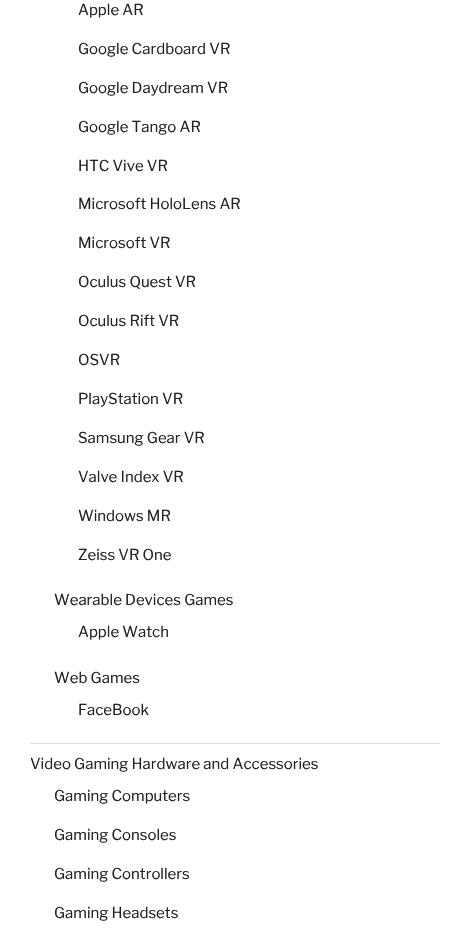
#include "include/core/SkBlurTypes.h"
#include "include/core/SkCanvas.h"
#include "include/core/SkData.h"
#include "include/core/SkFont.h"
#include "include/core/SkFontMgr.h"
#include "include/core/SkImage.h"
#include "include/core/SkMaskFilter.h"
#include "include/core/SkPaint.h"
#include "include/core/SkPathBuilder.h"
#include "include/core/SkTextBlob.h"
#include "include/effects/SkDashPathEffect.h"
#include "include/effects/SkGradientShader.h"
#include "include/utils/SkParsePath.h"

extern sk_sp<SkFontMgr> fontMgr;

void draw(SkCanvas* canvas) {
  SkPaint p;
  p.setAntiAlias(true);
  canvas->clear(SK_ColorWHITE);
  p.setColor(SkColorSetRGB(221, 221, 221));
  canvas->drawRect(SkRect::MakeLTRB(30, 743, 440, 744), p);
  SkFont font1(fontMgr->matchFamilyStyle("Libre Franklin", SkFontStyle(100, SkFontStyle::kNormal_Width, SkFontStyle::kUpright_Slant)), 15);
  font1.setSubpixel(true);
  p.setColor(SkColorSetRGB(34, 34, 34));
  canvas->drawString("Apple AR", 78, 15, font1, p);
  canvas->drawString("Google Cardboard VR", 78, 54, font1, p);
  canvas->drawString("Google Daydream VR", 78, 93, font1, p);
  canvas->drawString("Google Tango AR", 78, 132, font1, p);
  canvas->drawString("HTC Vive VR", 78, 171, font1, p);
  canvas->drawString("Microsoft HoloLens AR", 78, 209, font1, p);
  canvas->drawString("Microsoft VR", 78, 248, font1, p);
  canvas->drawString("Oculus Quest VR", 78, 287, font1, p);
  canvas->drawString("Oculus Rift VR", 78, 326, font1, p);
  canvas->drawString("OSVR", 78, 365, font1, p);
  canvas->drawString("PlayStation VR", 78, 404, font1, p);
  canvas->drawString("Samsung Gear VR", 78, 443, font1, p);
  canvas->drawString("Valve Index VR", 78, 482, font1, p);
  canvas->drawString("Windows MR", 78, 521, font1, p);
  canvas->drawString("Zeiss VR One", 78, 560, font1, p);
  canvas->drawString("Wearable Devices Games", 54, 605, font1, p);
  canvas->drawString("Apple Watch", 78, 637, font1, p);
  canvas->drawString("Web Games", 54, 683, font1, p);
  canvas->drawString("FaceBook", 78, 715, font1, p);
  canvas->drawString("Video Gaming Hardware and Accessories", 30, 769, font1, p);
  canvas->drawString("Gaming Computers", 54, 801, font1, p);
  canvas->drawString("Gaming Consoles", 54, 840, font1, p);
  canvas->drawString("Gaming Controllers", 54, 879, font1, p);
  canvas->drawString("Gaming Headsets", 54, 918, font1, p);
}
